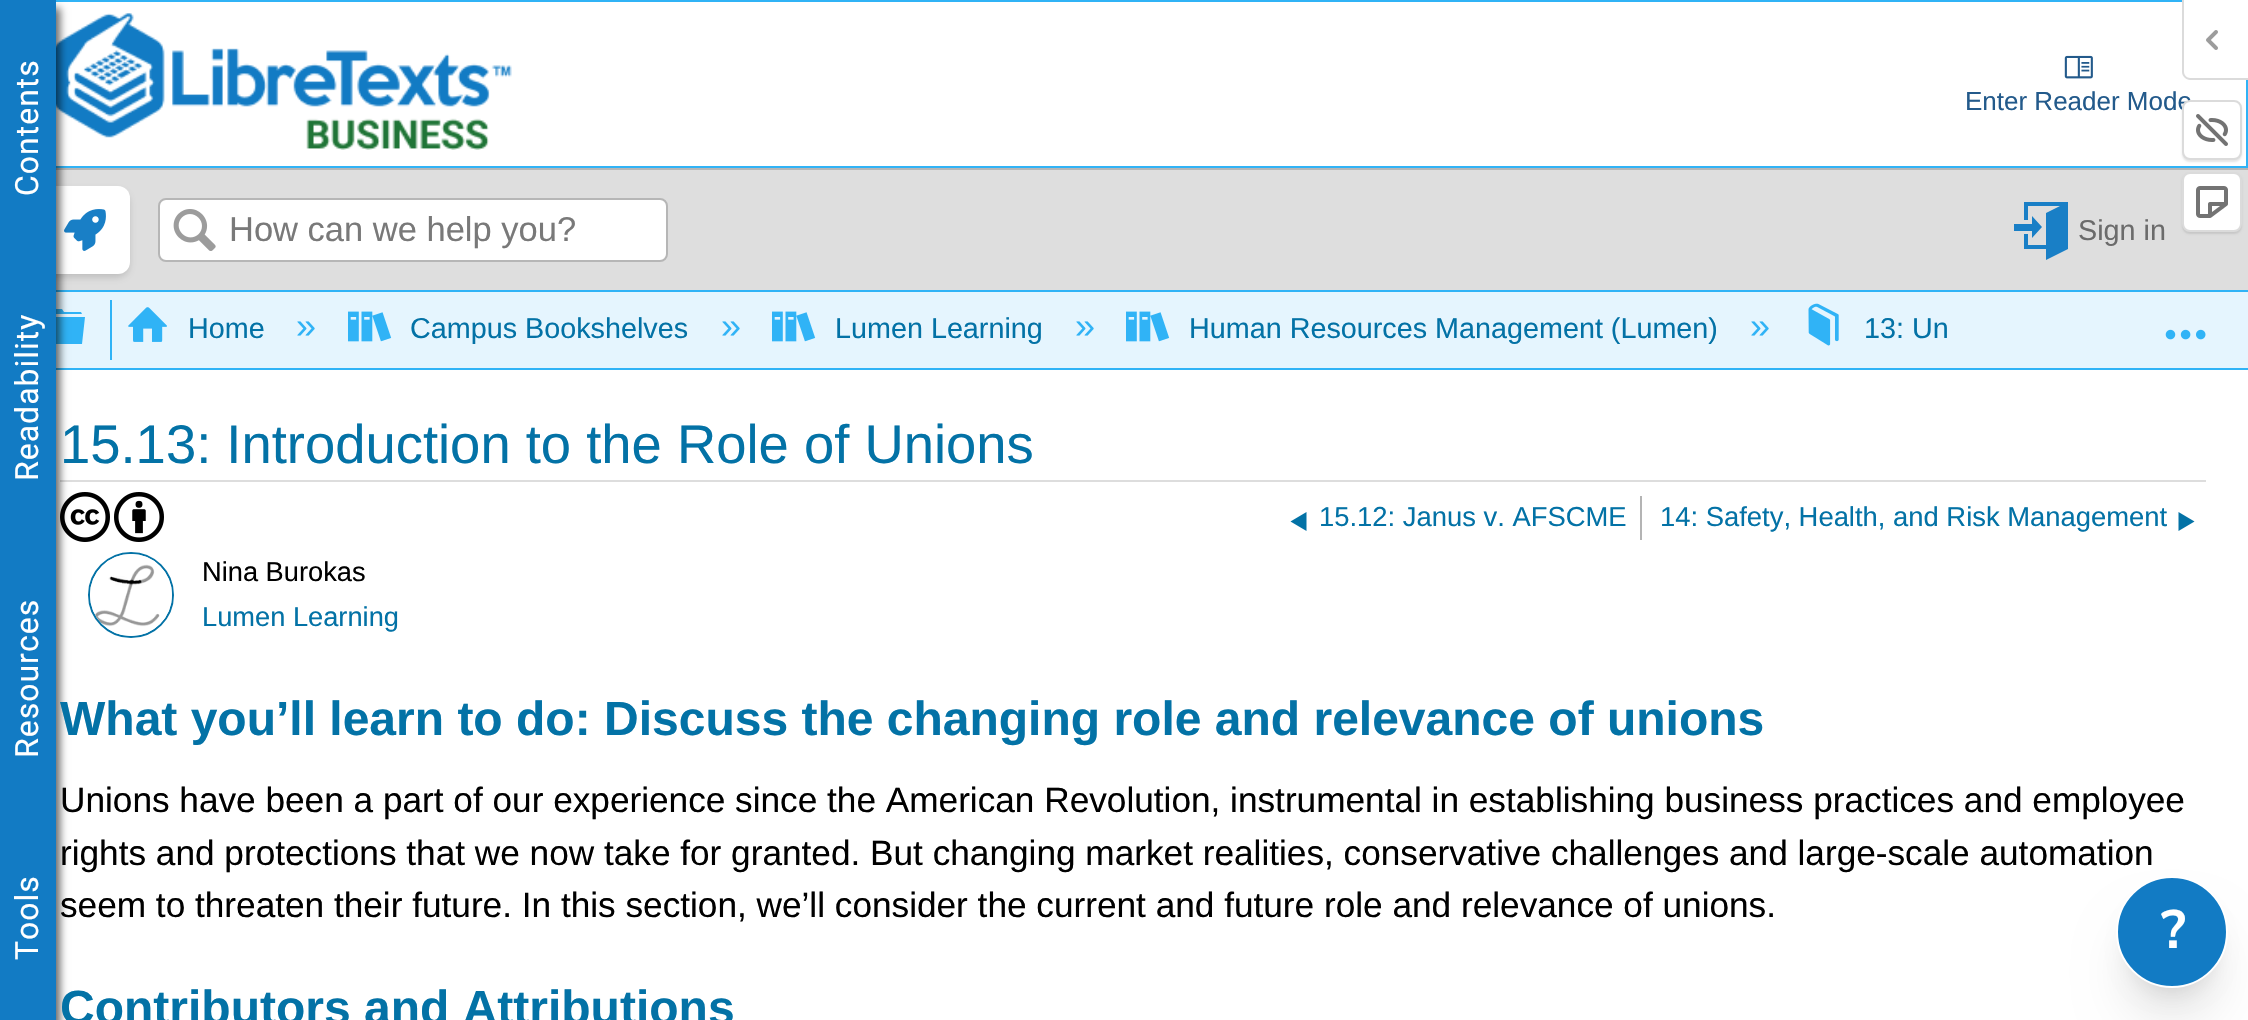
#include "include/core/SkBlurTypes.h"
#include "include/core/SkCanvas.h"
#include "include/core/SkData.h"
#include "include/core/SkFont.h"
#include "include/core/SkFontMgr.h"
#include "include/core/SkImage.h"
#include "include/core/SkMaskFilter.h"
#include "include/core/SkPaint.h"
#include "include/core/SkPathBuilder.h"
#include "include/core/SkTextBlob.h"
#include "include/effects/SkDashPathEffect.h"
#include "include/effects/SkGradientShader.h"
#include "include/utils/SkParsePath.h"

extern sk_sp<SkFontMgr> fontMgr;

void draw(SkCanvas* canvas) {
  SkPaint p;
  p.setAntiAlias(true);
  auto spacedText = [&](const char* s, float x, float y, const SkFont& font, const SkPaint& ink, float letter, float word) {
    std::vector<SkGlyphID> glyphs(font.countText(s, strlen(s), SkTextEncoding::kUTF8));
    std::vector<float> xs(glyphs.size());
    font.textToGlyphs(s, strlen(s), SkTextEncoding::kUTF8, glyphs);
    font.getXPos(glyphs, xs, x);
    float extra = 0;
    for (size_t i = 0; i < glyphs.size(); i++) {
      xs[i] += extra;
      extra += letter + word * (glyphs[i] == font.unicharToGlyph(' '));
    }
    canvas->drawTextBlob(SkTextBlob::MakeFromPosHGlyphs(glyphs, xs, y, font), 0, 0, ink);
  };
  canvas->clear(SK_ColorWHITE);
  p.setStyle(SkPaint::kStroke_Style);
  p.setStrokeWidth(2);
  p.setColor(SkColorSetRGB(48, 179, 246));
  canvas->drawRect(SkRect::MakeLTRB(1, 1, 2247, 167), p);
  canvas->drawImageRect(SkImages::DeferredFromEncodedData(SkData::MakeFromFileName("images/1.png")), SkRect::MakeLTRB(56, 13, 512, 150), SkSamplingOptions());
  p.setStyle(SkPaint::kFill_Style);
  p.setColor(SkColorSetRGB(222, 222, 222));
  canvas->drawRect(SkRect::MakeLTRB(56, 170, 2248, 290), p);
  p.setColor(SkColorSetRGB(182, 182, 182));
  canvas->drawRect(SkRect::MakeLTRB(56, 168, 2248, 170), p);
  p.setColor(SkColorSetRGB(48, 179, 246));
  canvas->drawRect(SkRect::MakeLTRB(56, 290, 2248, 292), p);
  p.setColor(SkColorSetARGB(51, 8, 8, 8));
  p.setMaskFilter(SkMaskFilter::MakeBlur(kNormal_SkBlurStyle, 5));
  canvas->drawRoundRect(SkRect::MakeLTRB(44, 192, 128, 276), 10, 10, p);
  p.setMaskFilter(nullptr);
  p.setColor(SK_ColorWHITE);
  canvas->drawRoundRect(SkRect::MakeLTRB(42, 186, 130, 274), 12, 12, p);
  canvas->drawImageRect(SkImages::DeferredFromEncodedData(SkData::MakeFromFileName("images/3.png")), SkRect::MakeLTRB(64, 209, 106, 251), SkSamplingOptions());
  p.setColor(SkColorSetRGB(229, 245, 254));
  canvas->drawRect(SkRect::MakeLTRB(56, 292, 2248, 368), p);
  p.setColor(SkColorSetRGB(48, 179, 246));
  canvas->drawRect(SkRect::MakeLTRB(56, 368, 2248, 370), p);
  canvas->drawPath(SkPathBuilder().moveTo(42, 317).lineTo(85, 317).lineTo(82, 344).lineTo(45, 344).close().moveTo(81, 312).lineTo(82, 314).lineTo(45, 314).lineTo(47, 309).lineTo(62, 309).lineTo(64, 312).close().detach(), p);
  p.setColor(SkColorSetRGB(221, 221, 221));
  canvas->drawRect(SkRect::MakeLTRB(60, 480, 2206, 482), p);
  canvas->drawImageRect(SkImages::DeferredFromEncodedData(SkData::MakeFromFileName("images/9.png")), SkRect::MakeLTRB(60, 492, 110, 542), SkSamplingOptions());
  p.setColor(SkColorSetARGB(153, 0, 0, 0));
  p.setMaskFilter(SkMaskFilter::MakeBlur(kNormal_SkBlurStyle, 4));
  canvas->drawRect(SkRect::MakeLTRB(4, 8, 60, 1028), p);
  p.setMaskFilter(nullptr);
  p.setColor(SkColorSetRGB(18, 123, 196));
  canvas->drawRect(SkRect::MakeLTRB(0, 0, 56, 1020), p);
  canvas->drawImageRect(SkImages::DeferredFromEncodedData(SkData::MakeFromFileName("images/2.png")), SkRect::MakeLTRB(2064, 55, 2093, 79), SkSamplingOptions());
  p.setColor(SK_ColorWHITE);
  canvas->drawRoundRect(SkRect::MakeLTRB(159, 199, 667, 261), 7, 7, p);
  p.setStyle(SkPaint::kStroke_Style);
  p.setColor(SkColorSetRGB(182, 182, 182));
  canvas->drawRoundRect(SkRect::MakeLTRB(159, 199, 667, 261), 7, 7, p);
  canvas->drawImageRect(SkImages::DeferredFromEncodedData(SkData::MakeFromFileName("images/4.png")), SkRect::MakeLTRB(173, 209, 216, 251), SkSamplingOptions());
  p.setStyle(SkPaint::kFill_Style);
  p.setColor(SkColorSetRGB(25, 127, 198));
  canvas->drawPath(SkPathBuilder().moveTo(2032, 231).lineTo(2014, 231).lineTo(2014, 224).lineTo(2032, 224).lineTo(2032, 216).lineTo(2042, 227).lineTo(2032, 238).close().moveTo(2068, 202).lineTo(2068, 249).lineTo(2046, 260).lineTo(2046, 249).lineTo(2024, 249).lineTo(2024, 234).lineTo(2028, 234).lineTo(2028, 245).lineTo(2046, 245).lineTo(2046, 213).lineTo(2060, 206).lineTo(2028, 206).lineTo(2028, 220).lineTo(2024, 220).lineTo(2024, 202).close().detach(), p);
  p.setColor(SkColorSetRGB(48, 179, 246));
  canvas->drawRect(SkRect::MakeLTRB(110, 300, 112, 360), p);
  canvas->drawImageRect(SkImages::DeferredFromEncodedData(SkData::MakeFromFileName("images/5.png")), SkRect::MakeLTRB(128, 307, 167, 342), SkSamplingOptions());
  canvas->drawImageRect(SkImages::DeferredFromEncodedData(SkData::MakeFromFileName("images/6.png")), SkRect::MakeLTRB(348, 311, 392, 342), SkSamplingOptions());
  canvas->drawImageRect(SkImages::DeferredFromEncodedData(SkData::MakeFromFileName("images/6.png")), SkRect::MakeLTRB(772, 311, 816, 342), SkSamplingOptions());
  canvas->drawImageRect(SkImages::DeferredFromEncodedData(SkData::MakeFromFileName("images/6.png")), SkRect::MakeLTRB(1126, 311, 1170, 342), SkSamplingOptions());
  canvas->drawImageRect(SkImages::DeferredFromEncodedData(SkData::MakeFromFileName("images/7.png")), SkRect::MakeLTRB(1808, 303, 1839, 346), SkSamplingOptions());
  canvas->drawImageRect(SkImages::DeferredFromEncodedData(SkData::MakeFromFileName("images/8.png")), SkRect::MakeLTRB(2165, 329, 2206, 340), SkSamplingOptions());
  canvas->drawImageRect(SkImages::DeferredFromEncodedData(SkData::MakeFromFileName("images/10.png")), SkRect::MakeLTRB(114, 492, 164, 542), SkSamplingOptions());
  p.setColor(SkColorSetRGB(180, 180, 180));
  canvas->drawRect(SkRect::MakeLTRB(1640, 496, 1642, 540), p);
  p.setColor(SkColorSetRGB(3, 114, 166));
  canvas->drawPath(SkPathBuilder().moveTo(1306.5f, 512).lineTo(1306.5f, 531).lineTo(1290.5f, 521.5f).close().detach(), p);
  canvas->drawPath(SkPathBuilder().moveTo(2178.5f, 512).lineTo(2178.5f, 531).lineTo(2194.5f, 521.5f).close().detach(), p);
  p.setStyle(SkPaint::kStroke_Style);
  canvas->drawCircle(131, 595, 42, p);
  canvas->drawImageRect(SkImages::DeferredFromEncodedData(SkData::MakeFromFileName("images/11.png")), SkRect::MakeLTRB(90, 554, 172, 636), SkSamplingOptions());
  p.setStyle(SkPaint::kFill_Style);
  p.setColor(SkColorSetARGB(26, 0, 0, 0));
  p.setMaskFilter(SkMaskFilter::MakeBlur(kNormal_SkBlurStyle, 10));
  canvas->drawRoundRect(SkRect::MakeLTRB(2128, 904, 2216, 992), 44, 44, p);
  p.setMaskFilter(nullptr);
  p.setMaskFilter(SkMaskFilter::MakeBlur(kNormal_SkBlurStyle, 25));
  canvas->drawRoundRect(SkRect::MakeLTRB(2126, 926, 2218, 1018), 46, 46, p);
  p.setMaskFilter(nullptr);
  p.setColor(SkColorSetRGB(18, 123, 196));
  canvas->drawCircle(2172, 932, 55, p);
  p.setStyle(SkPaint::kStroke_Style);
  p.setColor(SK_ColorWHITE);
  canvas->drawCircle(2172, 932, 55, p);
  p.setStyle(SkPaint::kFill_Style);
  canvas->drawPath(SkPathBuilder().moveTo(2184, 0).lineTo(2248, 0).lineTo(2248, 78).lineTo(2190, 78).cubicTo(2186.5f, 78, 2184, 75.5f, 2184, 72).close().detach(), p);
  p.setColor(SkColorSetRGB(219, 219, 219));
  canvas->drawPath(SkPathBuilder(SkPathFillType::kEvenOdd).moveTo(2182, 0).lineTo(2248, 0).lineTo(2248, 80).lineTo(2190, 80).cubicTo(2186, 80, 2182, 76, 2182, 72).close().moveTo(2184, 0).lineTo(2248, 0).lineTo(2248, 78).lineTo(2190, 78).cubicTo(2187, 78, 2184, 75, 2184, 72).close().detach(), p);
  canvas->drawImageRect(SkImages::DeferredFromEncodedData(SkData::MakeFromFileName("images/12.png")), SkRect::MakeLTRB(2206, 30, 2218, 50), SkSamplingOptions());
  p.setColor(SkColorSetARGB(26, 0, 0, 0));
  p.setMaskFilter(SkMaskFilter::MakeBlur(kNormal_SkBlurStyle, 1));
  canvas->drawRoundRect(SkRect::MakeLTRB(2182, 102, 2242, 162), 8, 8, p);
  p.setMaskFilter(nullptr);
  p.setMaskFilter(SkMaskFilter::MakeBlur(kNormal_SkBlurStyle, 1));
  canvas->drawRoundRect(SkRect::MakeLTRB(2182, 174, 2242, 234), 8, 8, p);
  p.setMaskFilter(nullptr);
  p.setColor(SK_ColorWHITE);
  canvas->drawRoundRect(SkRect::MakeLTRB(2183, 173, 2241, 231), 7, 7, p);
  p.setStyle(SkPaint::kStroke_Style);
  p.setColor(SkColorSetRGB(219, 219, 219));
  canvas->drawRoundRect(SkRect::MakeLTRB(2183, 173, 2241, 231), 7, 7, p);
  canvas->drawImageRect(SkImages::DeferredFromEncodedData(SkData::MakeFromFileName("images/14.png")), SkRect::MakeLTRB(2196, 186, 2228, 218), SkSamplingOptions());
  SkFont font1(fontMgr->matchFamilyStyle("Roboto", SkFontStyle::Normal()), 32);
  font1.setSubpixel(true);
  p.setStyle(SkPaint::kFill_Style);
  p.setColor(SK_ColorWHITE);
  canvas->save();
  canvas->rotate(-90, 38, 196);
  spacedText("Contents", 38, 196, font1, p, 1, 0);
  canvas->restore();
  canvas->save();
  canvas->rotate(-90, 38, 481);
  spacedText("Readability", 38, 481, font1, p, 1, 0);
  canvas->restore();
  canvas->save();
  canvas->rotate(-90, 38, 758);
  spacedText("Resources", 38, 758, font1, p, 1, 0);
  canvas->restore();
  canvas->save();
  canvas->rotate(-90, 38, 960);
  spacedText("Tools", 38, 960, font1, p, 1, 0);
  canvas->restore();
  SkFont font2(fontMgr->matchFamilyStyle("Liberation Sans", SkFontStyle::Normal()), 26);
  font2.setSubpixel(true);
  p.setColor(SkColorSetRGB(35, 90, 139));
  canvas->drawString("Enter Reader Mode", 1965, 110, font2, p);
  SkFont font3(fontMgr->matchFamilyStyle("Liberation Sans", SkFontStyle::Normal()), 34.5f);
  font3.setSubpixel(true);
  p.setColor(SkColorSetRGB(121, 121, 121));
  canvas->drawString("How can we help you?", 229, 241, font3, p);
  SkFont font4(fontMgr->matchFamilyStyle("Liberation Sans", SkFontStyle::Normal()), 28.75f);
  font4.setSubpixel(true);
  p.setColor(SkColorSetRGB(107, 107, 107));
  canvas->drawString("Sign in", 2078, 240, font4, p);
  p.setColor(SkColorSetRGB(3, 114, 166));
  canvas->drawString("Home", 188, 338, font4, p);
  SkFont font5(fontMgr->matchFamilyStyle("Liberation Sans", SkFontStyle::Normal()), 36);
  font5.setSubpixel(true);
  p.setColor(SkColorSetRGB(48, 179, 246));
  canvas->drawString("»", 296, 338, font5, p);
  p.setColor(SkColorSetRGB(3, 114, 166));
  canvas->drawString("Campus Bookshelves", 410, 338, font4, p);
  p.setColor(SkColorSetRGB(48, 179, 246));
  canvas->drawString("»", 721, 338, font5, p);
  p.setColor(SkColorSetRGB(3, 114, 166));
  canvas->drawString("Lumen Learning", 835, 338, font4, p);
  p.setColor(SkColorSetRGB(48, 179, 246));
  canvas->drawString("»", 1075, 338, font5, p);
  p.setColor(SkColorSetRGB(3, 114, 166));
  canvas->drawString("Human Resources Management (Lumen)", 1189, 338, font4, p);
  p.setColor(SkColorSetRGB(48, 179, 246));
  canvas->drawString("»", 1750, 338, font5, p);
  p.setColor(SkColorSetRGB(3, 114, 166));
  canvas->drawString("13: Un", 1864, 338, font4, p);
  SkFont font6(fontMgr->matchFamilyStyle("Liberation Sans", SkFontStyle::Normal()), 54.4f);
  font6.setSubpixel(true);
  canvas->drawString("15.13: Introduction to the Role of Unions", 60, 463, font6, p);
  SkFont font7(fontMgr->matchFamilyStyle("Liberation Sans", SkFontStyle::Normal()), 27.4f);
  font7.setSubpixel(true);
  canvas->drawString("15.12: Janus v. AFSCME", 1319, 526, font7, p);
  canvas->drawString("14: Safety, Health, and Risk Management", 1660, 526, font7, p);
  SkFont font8(fontMgr->matchFamilyStyle("Liberation Sans", SkFontStyle::Normal()), 27.25f);
  font8.setSubpixel(true);
  p.setColor(SK_ColorBLACK);
  canvas->drawString("Nina Burokas", 202, 581, font8, p);
  p.setColor(SkColorSetRGB(3, 114, 166));
  canvas->drawString("Lumen Learning", 202, 626, font8, p);
  SkFont font9(fontMgr->matchFamilyStyle("Liberation Sans", SkFontStyle::Bold()), 48);
  font9.setSubpixel(true);
  canvas->drawString("What you’ll learn to do: Discuss the changing role and relevance of unions", 60, 735, font9, p);
  SkFont font10(fontMgr->matchFamilyStyle("Liberation Sans", SkFontStyle::Normal()), 35.2f);
  font10.setSubpixel(true);
  p.setColor(SK_ColorBLACK);
  canvas->drawString("Unions have been a part of our experience since the American Revolution, instrumental in establishing business practices and employee", 60, 812, font10, p);
  canvas->drawString("rights and protections that we now take for granted. But changing market realities, conservative challenges and large-scale automation", 60, 865, font10, p);
  canvas->drawString("seem to threaten their future. In this section, we’ll consider the current and future role and relevance of unions.", 60, 917, font10, p);
  p.setColor(SkColorSetRGB(3, 114, 166));
  canvas->drawString("Contributors and Attributions", 60, 1024, font9, p);
  SkFont font11(fontMgr->matchFamilyStyle("Nunito Sans", SkFontStyle::Bold()), 54);
  font11.setSubpixel(true);
  p.setColor(SK_ColorWHITE);
  canvas->drawString("?", 2161, 948, font11, p);
  canvas->drawRoundRect(SkRect::MakeLTRB(2183, 101, 2241, 159), 7, 7, p);
  p.setStyle(SkPaint::kStroke_Style);
  p.setColor(SkColorSetRGB(219, 219, 219));
  canvas->drawRoundRect(SkRect::MakeLTRB(2183, 101, 2241, 159), 7, 7, p);
  canvas->drawImageRect(SkImages::DeferredFromEncodedData(SkData::MakeFromFileName("images/13.png")), SkRect::MakeLTRB(2196, 114, 2228, 146), SkSamplingOptions());
}
